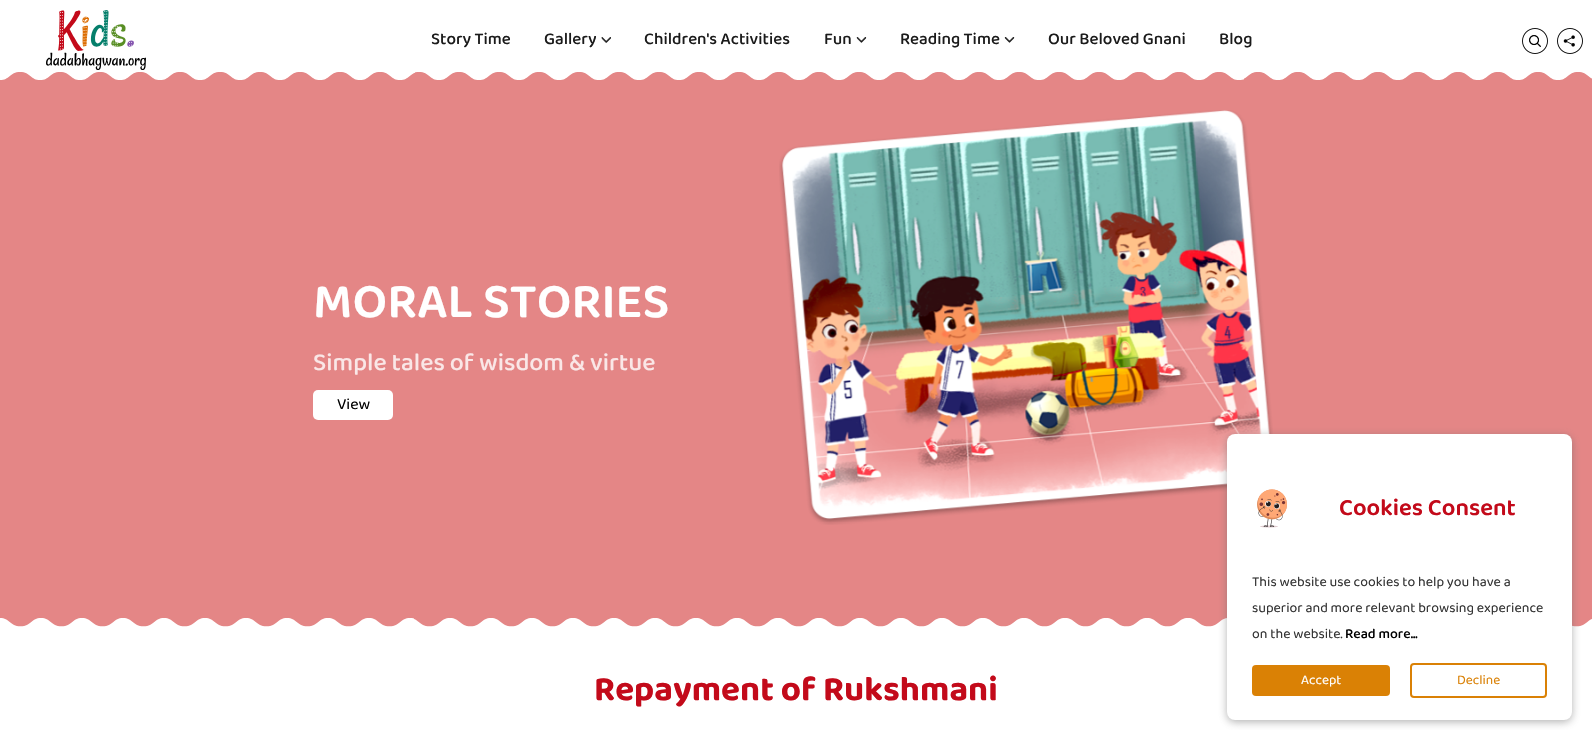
#include "include/core/SkBlurTypes.h"
#include "include/core/SkCanvas.h"
#include "include/core/SkData.h"
#include "include/core/SkFont.h"
#include "include/core/SkFontMgr.h"
#include "include/core/SkImage.h"
#include "include/core/SkMaskFilter.h"
#include "include/core/SkPaint.h"
#include "include/core/SkPathBuilder.h"
#include "include/core/SkTextBlob.h"
#include "include/effects/SkDashPathEffect.h"
#include "include/effects/SkGradientShader.h"
#include "include/utils/SkParsePath.h"

extern sk_sp<SkFontMgr> fontMgr;

void draw(SkCanvas* canvas) {
  SkPaint p;
  p.setAntiAlias(true);
  canvas->clear(SK_ColorWHITE);
  p.setColor(SkColorSetRGB(228, 134, 134));
  canvas->drawRect(SkRect::MakeLTRB(0, 72, 1592, 627), p);
  canvas->drawImageRect(SkImages::DeferredFromEncodedData(SkData::MakeFromFileName("images/1.png")), SkRect::MakeLTRB(0, 0, 1592, 80), SkSamplingOptions());
  canvas->drawImageRect(SkImages::DeferredFromEncodedData(SkData::MakeFromFileName("images/2.png")), SkRect::MakeLTRB(46, 10, 146, 70), SkSamplingOptions());
  canvas->drawImageRect(SkImages::DeferredFromEncodedData(SkData::MakeFromFileName("images/3.png")), SkRect::MakeLTRB(601, 37, 611, 43), SkSamplingOptions());
  canvas->drawImageRect(SkImages::DeferredFromEncodedData(SkData::MakeFromFileName("images/4.png")), SkRect::MakeLTRB(856, 37, 867, 43), SkSamplingOptions());
  canvas->drawImageRect(SkImages::DeferredFromEncodedData(SkData::MakeFromFileName("images/5.png")), SkRect::MakeLTRB(1004, 37, 1015, 43), SkSamplingOptions());
  canvas->drawImageRect(SkImages::DeferredFromEncodedData(SkData::MakeFromFileName("images/6.png")), SkRect::MakeLTRB(1522, 28, 1548, 54), SkSamplingOptions());
  canvas->drawImageRect(SkImages::DeferredFromEncodedData(SkData::MakeFromFileName("images/7.png")), SkRect::MakeLTRB(1557, 28, 1583, 54), SkSamplingOptions());
  p.setColor(SK_ColorWHITE);
  canvas->drawRoundRect(SkRect::MakeLTRB(313, 390, 393, 420), 5, 5, p);
  canvas->drawImageRect(SkImages::DeferredFromEncodedData(SkData::MakeFromFileName("images/8.png")), SkRect::MakeLTRB(779, 110, 1273, 525), SkSamplingOptions());
  canvas->drawImageRect(SkImages::DeferredFromEncodedData(SkData::MakeFromFileName("images/9.png")), SkRect::MakeLTRB(0, 618, 1592, 630), SkSamplingOptions());
  p.setColor(SkColorSetARGB(128, 99, 99, 99));
  p.setMaskFilter(SkMaskFilter::MakeBlur(kNormal_SkBlurStyle, 4));
  canvas->drawRoundRect(SkRect::MakeLTRB(1227, 436, 1572, 722), 8, 8, p);
  p.setMaskFilter(nullptr);
  p.setColor(SK_ColorWHITE);
  canvas->drawRoundRect(SkRect::MakeLTRB(1227, 434, 1572, 720), 8, 8, p);
  canvas->drawImageRect(SkImages::DeferredFromEncodedData(SkData::MakeFromFileName("images/10.png")), SkRect::MakeLTRB(1257, 489, 1287, 528), SkSamplingOptions());
  p.setColor(SkColorSetRGB(218, 129, 5));
  canvas->drawRoundRect(SkRect::MakeLTRB(1252, 665, 1390, 696), 4, 4, p);
  p.setStyle(SkPaint::kStroke_Style);
  p.setStrokeWidth(2);
  canvas->drawRoundRect(SkRect::MakeLTRB(1411, 664, 1546, 697), 3, 3, p);
  SkFont font1(fontMgr->matchFamilyStyle("Baloo 2", SkFontStyle(500, SkFontStyle::kNormal_Width, SkFontStyle::kUpright_Slant)), 17);
  font1.setSubpixel(true);
  p.setStyle(SkPaint::kFill_Style);
  p.setColor(SkColorSetRGB(27, 27, 27));
  canvas->drawString("Story Time", 431, 44, font1, p);
  canvas->drawString("Gallery", 544, 44, font1, p);
  canvas->drawString("Children's Activities", 644, 44, font1, p);
  canvas->drawString("Fun", 824, 44, font1, p);
  canvas->drawString("Reading Time", 900, 44, font1, p);
  canvas->drawString("Our Beloved Gnani", 1048, 44, font1, p);
  canvas->drawString("Blog", 1219, 44, font1, p);
  SkFont font2(fontMgr->matchFamilyStyle("Baloo 2", SkFontStyle(600, SkFontStyle::kNormal_Width, SkFontStyle::kUpright_Slant)), 50);
  font2.setSubpixel(true);
  p.setColor(SK_ColorWHITE);
  canvas->drawString("MORAL STORIES", 313, 317, font2, p);
  SkFont font3(fontMgr->matchFamilyStyle("Baloo 2", SkFontStyle(500, SkFontStyle::kNormal_Width, SkFontStyle::kUpright_Slant)), 25);
  font3.setSubpixel(true);
  p.setColor(SkColorSetRGB(250, 231, 231));
  canvas->drawString("Simple tales of wisdom & virtue", 313, 370, font3, p);
  SkFont font4(fontMgr->matchFamilyStyle("Baloo 2", SkFontStyle::Normal()), 16);
  font4.setSubpixel(true);
  p.setColor(SK_ColorBLACK);
  canvas->drawString("View", 337, 409, font4, p);
  SkFont font5(fontMgr->matchFamilyStyle("Baloo 2", SkFontStyle(600, SkFontStyle::kNormal_Width, SkFontStyle::kUpright_Slant)), 24);
  font5.setSubpixel(true);
  p.setColor(SkColorSetRGB(195, 10, 26));
  canvas->drawString("Cookies Consent", 1339, 515, font5, p);
  SkFont font6(fontMgr->matchFamilyStyle("Baloo 2", SkFontStyle::Normal()), 14);
  font6.setSubpixel(true);
  p.setColor(SkColorSetRGB(51, 51, 51));
  canvas->drawString("This website use cookies to help you have a", 1252, 586, font6, p);
  canvas->drawString("superior and more relevant browsing experience", 1252, 612, font6, p);
  canvas->drawString("on the website.", 1252, 638, font6, p);
  SkFont font7(fontMgr->matchFamilyStyle("Baloo 2", SkFontStyle(500, SkFontStyle::kNormal_Width, SkFontStyle::kUpright_Slant)), 14);
  font7.setSubpixel(true);
  p.setColor(SK_ColorBLACK);
  canvas->drawString("Read more...", 1345, 638, font7, p);
  SkFont font8(fontMgr->matchFamilyStyle("Baloo 2", SkFontStyle::Normal()), 13.5f);
  font8.setSubpixel(true);
  p.setColor(SK_ColorWHITE);
  canvas->drawString("Accept", 1301, 684, font8, p);
  p.setColor(SkColorSetRGB(218, 129, 5));
  canvas->drawString("Decline", 1457, 684, font8, p);
  SkFont font9(fontMgr->matchFamilyStyle("Baloo 2", SkFontStyle::Bold()), 35);
  font9.setSubpixel(true);
  p.setColor(SkColorSetRGB(195, 10, 26));
  canvas->drawString("Repayment of Rukshmani", 594, 700, font9, p);
}
